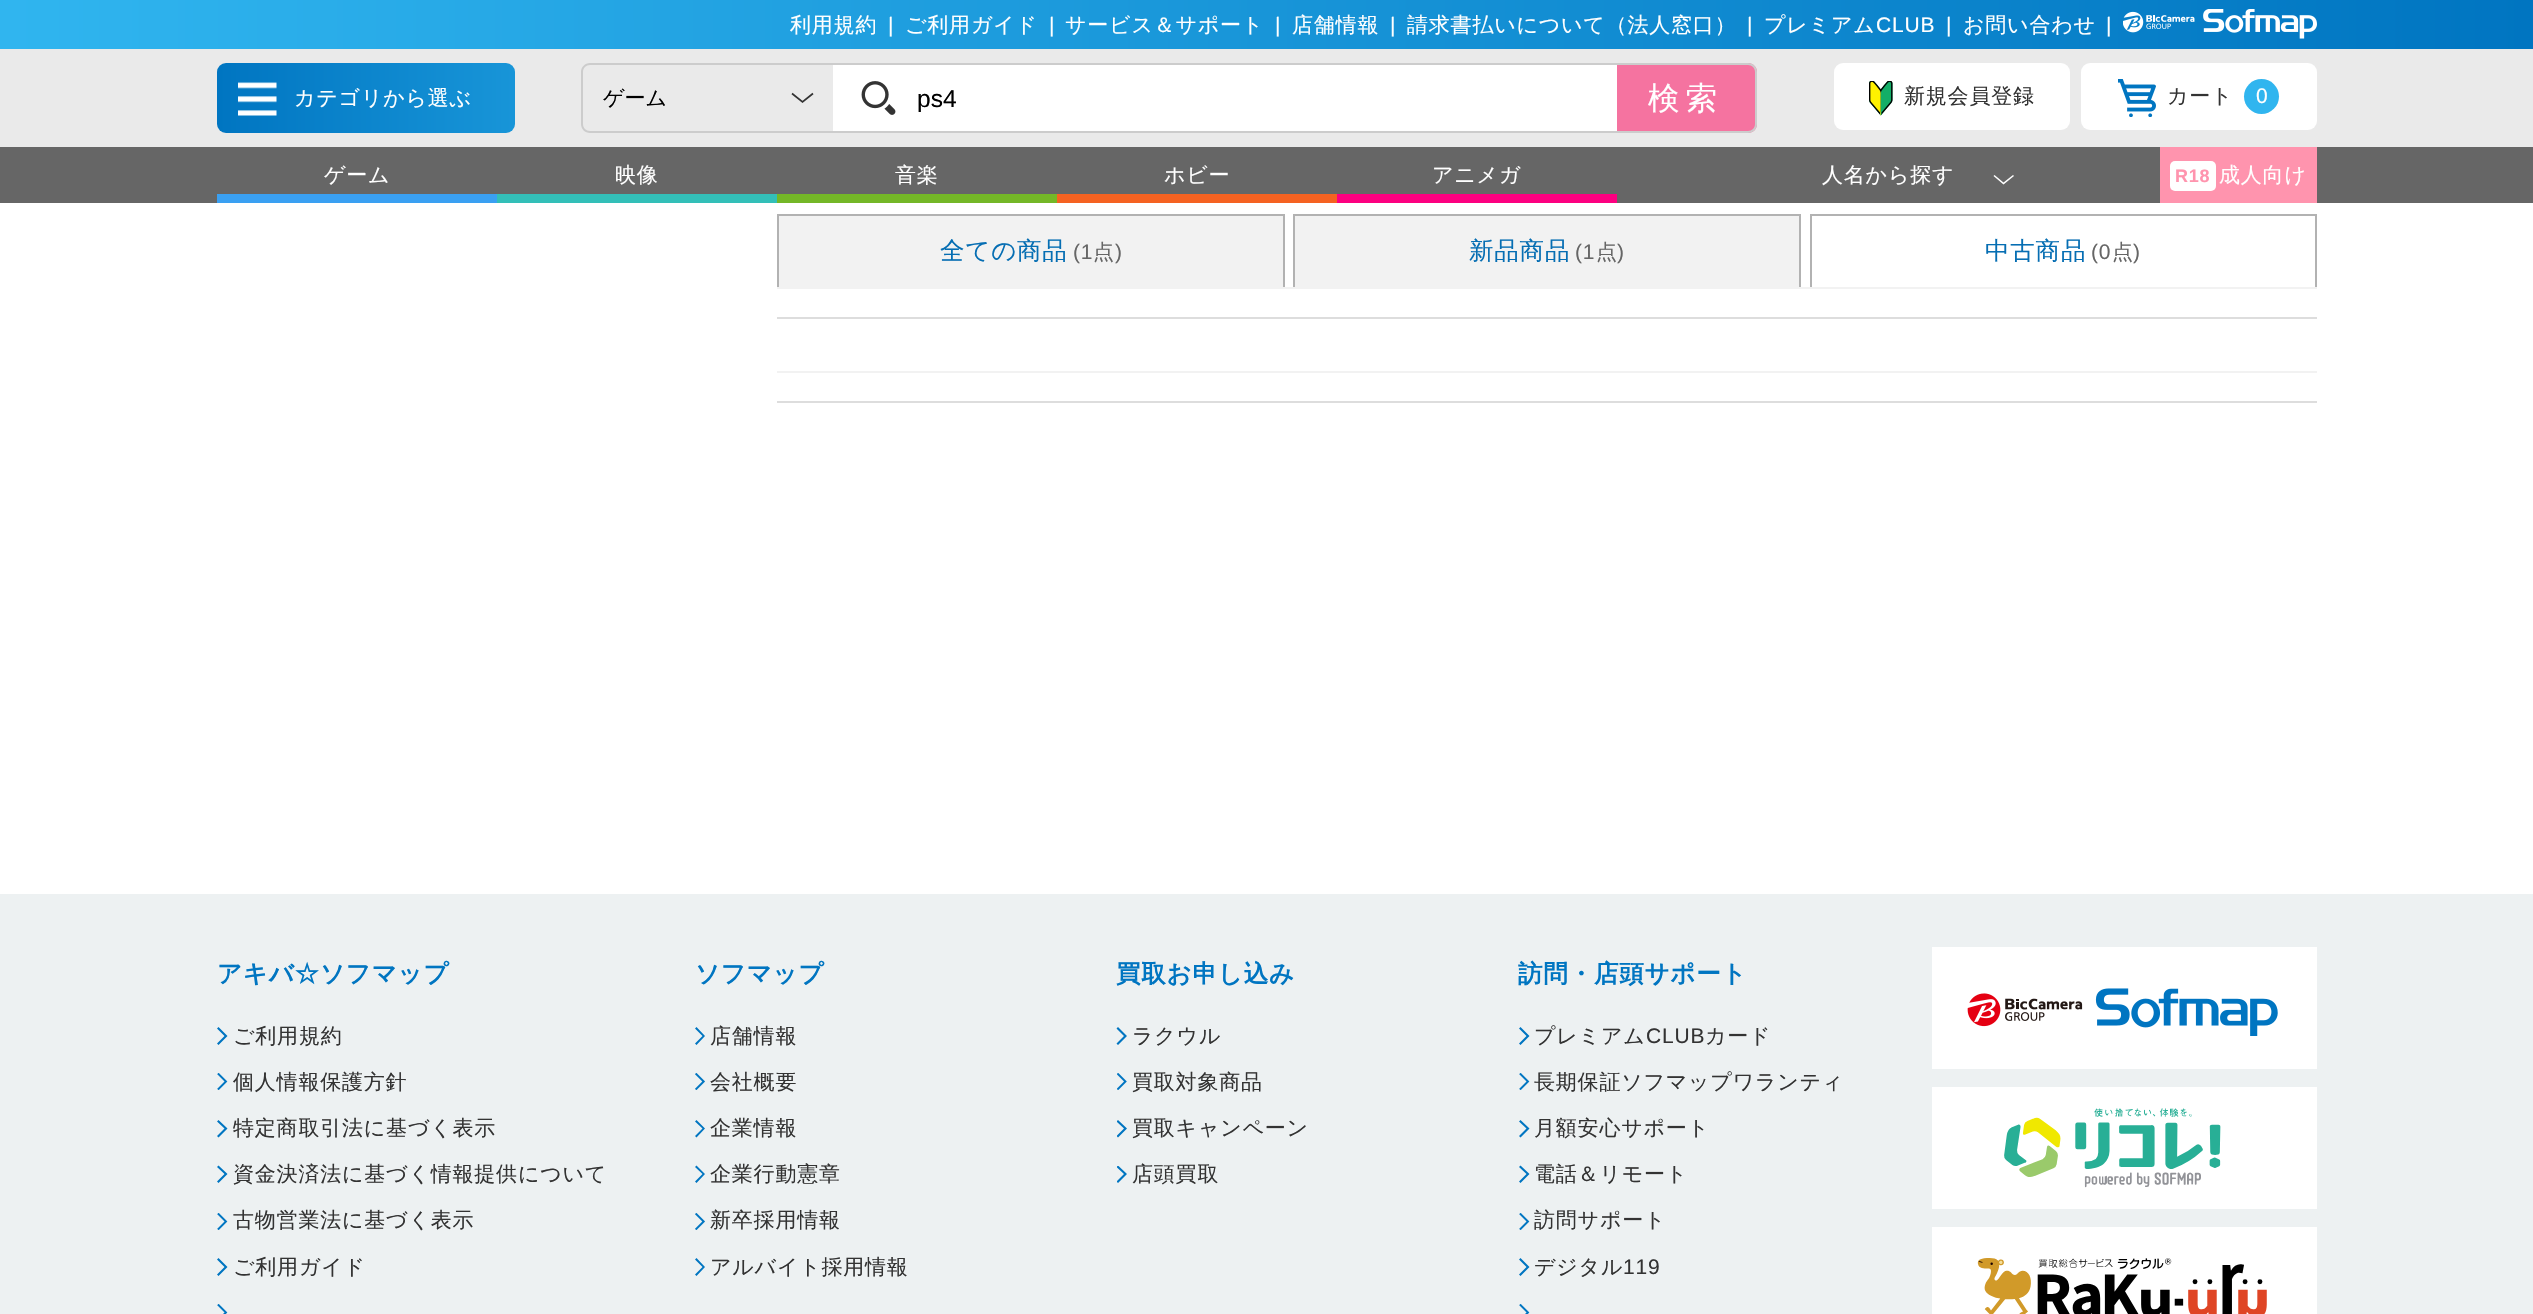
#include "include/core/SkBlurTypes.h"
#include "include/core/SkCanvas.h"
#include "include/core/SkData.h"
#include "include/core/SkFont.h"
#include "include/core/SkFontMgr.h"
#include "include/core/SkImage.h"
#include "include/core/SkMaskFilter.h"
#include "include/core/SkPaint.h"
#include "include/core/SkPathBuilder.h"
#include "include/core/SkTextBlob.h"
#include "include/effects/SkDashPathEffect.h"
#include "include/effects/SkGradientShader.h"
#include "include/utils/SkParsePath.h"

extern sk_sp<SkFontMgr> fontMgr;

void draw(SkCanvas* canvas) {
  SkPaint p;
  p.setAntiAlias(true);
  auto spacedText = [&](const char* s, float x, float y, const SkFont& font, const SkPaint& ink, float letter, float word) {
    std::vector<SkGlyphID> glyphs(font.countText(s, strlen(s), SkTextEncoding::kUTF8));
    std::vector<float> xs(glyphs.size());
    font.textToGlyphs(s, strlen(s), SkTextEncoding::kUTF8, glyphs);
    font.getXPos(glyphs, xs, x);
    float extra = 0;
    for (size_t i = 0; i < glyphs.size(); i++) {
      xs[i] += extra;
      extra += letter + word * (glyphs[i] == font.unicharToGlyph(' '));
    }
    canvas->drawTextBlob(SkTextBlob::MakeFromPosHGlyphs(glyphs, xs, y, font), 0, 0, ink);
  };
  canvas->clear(SK_ColorWHITE);
  {
    const SkColor colors[] = {SkColorSetRGB(48, 181, 239), SkColorSetRGB(0, 117, 193)};
    const float stops[] = {0, 1};
    const SkPoint ends[] = {{0, 25}, {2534, 24}};
    p.setShader(SkGradientShader::MakeLinear(ends, colors, stops, 2, SkTileMode::kClamp));
    p.setAlpha(255);
  }
  canvas->drawRect(SkRect::MakeLTRB(0, 0, 2533, 49), p);
  canvas->drawImageRect(SkImages::DeferredFromEncodedData(SkData::MakeFromFileName("images/1.png")), SkRect::MakeLTRB(2123, 9, 2317, 39), SkSamplingOptions());
  p.setShader(nullptr);
  p.setColor(SkColorSetRGB(234, 234, 234));
  canvas->drawRect(SkRect::MakeLTRB(0, 49, 2533, 147), p);
  {
    const SkColor colors[] = {SkColorSetRGB(24, 149, 216), SkColorSetRGB(0, 117, 193)};
    const float stops[] = {0, 1};
    const SkPoint ends[] = {{515, 98}, {217, 98}};
    p.setShader(SkGradientShader::MakeLinear(ends, colors, stops, 2, SkTileMode::kClamp));
    p.setAlpha(255);
  }
  canvas->drawRoundRect(SkRect::MakeLTRB(217, 63, 515, 133), 9, 9, p);
  canvas->drawImageRect(SkImages::DeferredFromEncodedData(SkData::MakeFromFileName("images/2.png")), SkRect::MakeLTRB(238, 82, 277, 116), SkSamplingOptions());
  p.setStyle(SkPaint::kStroke_Style);
  p.setStrokeWidth(1.7f);
  p.setShader(nullptr);
  p.setColor(SkColorSetRGB(51, 51, 51));
  canvas->drawPath(SkPathBuilder().moveTo(813, 93.5f).lineTo(802.5f, 102).lineTo(792, 93.5f).detach(), p);
  p.setStyle(SkPaint::kFill_Style);
  p.setColor(SkColorSetRGB(204, 204, 204));
  canvas->drawPath(SkPathBuilder(SkPathFillType::kEvenOdd).moveTo(590, 63).lineTo(833, 63).lineTo(833, 133).lineTo(590, 133).cubicTo(585, 133, 581, 129, 581, 124).lineTo(581, 72).cubicTo(581, 67, 585, 63, 590, 63).close().moveTo(590, 65).lineTo(833, 65).lineTo(833, 131).lineTo(590, 131).cubicTo(586, 131, 583, 128, 583, 124).lineTo(583, 72).cubicTo(583, 68, 586, 65, 590, 65).close().detach(), p);
  p.setColor(SK_ColorWHITE);
  canvas->drawRect(SkRect::MakeLTRB(833, 65, 1617, 131), p);
  canvas->drawImageRect(SkImages::DeferredFromEncodedData(SkData::MakeFromFileName("images/3.png")), SkRect::MakeLTRB(861, 81, 896, 115), SkSamplingOptions());
  p.setColor(SkColorSetRGB(204, 204, 204));
  canvas->drawRect(SkRect::MakeLTRB(833, 63, 1617, 65), p);
  canvas->drawRect(SkRect::MakeLTRB(833, 131, 1617, 133), p);
  p.setColor(SkColorSetRGB(245, 115, 160));
  canvas->drawPath(SkPathBuilder().moveTo(1617, 63).lineTo(1748, 63).cubicTo(1753, 63, 1757, 67, 1757, 72).lineTo(1757, 124).cubicTo(1757, 129, 1753, 133, 1748, 133).lineTo(1617, 133).close().detach(), p);
  p.setColor(SkColorSetRGB(204, 204, 204));
  canvas->drawPath(SkPathBuilder(SkPathFillType::kEvenOdd).moveTo(1617, 63).lineTo(1748, 63).cubicTo(1753, 63, 1757, 67, 1757, 72).lineTo(1757, 124).cubicTo(1757, 129, 1753, 133, 1748, 133).lineTo(1617, 133).close().moveTo(1617, 65).lineTo(1748, 65).cubicTo(1752, 65, 1755, 68, 1755, 72).lineTo(1755, 124).cubicTo(1755, 128, 1752, 131, 1748, 131).lineTo(1617, 131).close().detach(), p);
  p.setColor(SK_ColorWHITE);
  canvas->drawRoundRect(SkRect::MakeLTRB(1834, 63, 2070, 130), 9, 9, p);
  canvas->drawImageRect(SkImages::DeferredFromEncodedData(SkData::MakeFromFileName("images/4.png")), SkRect::MakeLTRB(1869, 81, 1893, 116), SkSamplingOptions());
  canvas->drawRoundRect(SkRect::MakeLTRB(2081, 63, 2317, 130), 9, 9, p);
  canvas->drawImageRect(SkImages::DeferredFromEncodedData(SkData::MakeFromFileName("images/5.png")), SkRect::MakeLTRB(2118, 79, 2156, 117), SkSamplingOptions());
  p.setColor(SkColorSetRGB(48, 181, 239));
  canvas->drawCircle(2261.5f, 96.5f, 17.5f, p);
  p.setColor(SkColorSetRGB(102, 102, 102));
  canvas->drawRect(SkRect::MakeLTRB(0, 147, 2533, 203), p);
  p.setColor(SkColorSetRGB(58, 160, 242));
  canvas->drawRect(SkRect::MakeLTRB(217, 194, 497, 203), p);
  p.setColor(SkColorSetRGB(51, 191, 184));
  canvas->drawRect(SkRect::MakeLTRB(497, 194, 777, 203), p);
  p.setColor(SkColorSetRGB(116, 183, 39));
  canvas->drawRect(SkRect::MakeLTRB(777, 194, 1057, 203), p);
  p.setColor(SkColorSetRGB(245, 98, 33));
  canvas->drawRect(SkRect::MakeLTRB(1057, 194, 1337, 203), p);
  p.setColor(SkColorSetRGB(252, 0, 128));
  canvas->drawRect(SkRect::MakeLTRB(1337, 194, 1617, 203), p);
  p.setColor(SK_ColorWHITE);
  canvas->drawPath(SkPathBuilder().moveTo(2003.5f, 184.5f).lineTo(1993.5f, 176).lineTo(1994.5f, 175).lineTo(2003.5f, 182.5f).lineTo(2013, 175).lineTo(2014, 176).close().detach(), p);
  p.setColor(SkColorSetRGB(255, 148, 174));
  canvas->drawRect(SkRect::MakeLTRB(2160, 147, 2317, 203), p);
  p.setColor(SK_ColorWHITE);
  canvas->drawRoundRect(SkRect::MakeLTRB(2170, 161, 2216, 191), 5, 5, p);
  p.setColor(SkColorSetRGB(242, 242, 242));
  canvas->drawRect(SkRect::MakeLTRB(778, 215, 1284, 288), p);
  p.setStyle(SkPaint::kStroke_Style);
  p.setStrokeWidth(2);
  p.setColor(SkColorSetRGB(178, 178, 178));
  canvas->drawRect(SkRect::MakeLTRB(778, 215, 1284, 288), p);
  p.setStyle(SkPaint::kFill_Style);
  p.setColor(SkColorSetRGB(242, 242, 242));
  canvas->drawRect(SkRect::MakeLTRB(1294, 215, 1800, 288), p);
  p.setStyle(SkPaint::kStroke_Style);
  p.setColor(SkColorSetRGB(178, 178, 178));
  canvas->drawRect(SkRect::MakeLTRB(1294, 215, 1800, 288), p);
  p.setStyle(SkPaint::kFill_Style);
  canvas->drawRect(SkRect::MakeLTRB(1810, 214, 2317, 216), p);
  canvas->drawRect(SkRect::MakeLTRB(2315, 214, 2317, 289), p);
  canvas->drawRect(SkRect::MakeLTRB(1810, 214, 1812, 289), p);
  p.setColor(SkColorSetRGB(242, 242, 242));
  canvas->drawRect(SkRect::MakeLTRB(777, 287, 2317, 289), p);
  p.setColor(SkColorSetRGB(221, 221, 221));
  canvas->drawRect(SkRect::MakeLTRB(777, 317, 2317, 319), p);
  p.setColor(SkColorSetRGB(242, 242, 242));
  canvas->drawRect(SkRect::MakeLTRB(777, 371, 2317, 373), p);
  p.setColor(SkColorSetRGB(221, 221, 221));
  canvas->drawRect(SkRect::MakeLTRB(777, 401, 2317, 403), p);
  p.setColor(SkColorSetRGB(237, 241, 242));
  canvas->drawRect(SkRect::MakeLTRB(0, 894, 2533, 1314), p);
  p.setColor(SkColorSetRGB(0, 117, 193));
  canvas->drawPath(SkPathBuilder().moveTo(218.5f, 1027).lineTo(217, 1028.5f).lineTo(224.5f, 1036).lineTo(217, 1043.5f).lineTo(218.5f, 1045).lineTo(227.5f, 1036).close().detach(), p);
  canvas->drawImageRect(SkImages::DeferredFromEncodedData(SkData::MakeFromFileName("images/6.png")), SkRect::MakeLTRB(217, 1073, 228, 1090), SkSamplingOptions());
  canvas->drawPath(SkPathBuilder().moveTo(218.5f, 1120).lineTo(217, 1121.5f).lineTo(224.5f, 1128.5f).lineTo(217, 1136).lineTo(218.5f, 1137.5f).lineTo(227.5f, 1128.5f).close().moveTo(218.5f, 1165.5f).lineTo(217, 1167).lineTo(224.5f, 1174).lineTo(217, 1181.5f).lineTo(218.5f, 1183).lineTo(227.5f, 1174).close().detach(), p);
  canvas->drawImageRect(SkImages::DeferredFromEncodedData(SkData::MakeFromFileName("images/6.png")), SkRect::MakeLTRB(217, 1213, 228, 1230), SkSamplingOptions());
  canvas->drawPath(SkPathBuilder().moveTo(218.5f, 1258).lineTo(217, 1259.5f).lineTo(224.5f, 1267).lineTo(217, 1274.5f).lineTo(218.5f, 1276).lineTo(227.5f, 1267).close().detach(), p);
  canvas->drawImageRect(SkImages::DeferredFromEncodedData(SkData::MakeFromFileName("images/7.png")), SkRect::MakeLTRB(217, 1304, 228, 1314), SkSamplingOptions());
  canvas->drawPath(SkPathBuilder().moveTo(696.5f, 1027).lineTo(695, 1028.5f).lineTo(702.5f, 1036).lineTo(695, 1043.5f).lineTo(696.5f, 1045).lineTo(705, 1036).close().detach(), p);
  canvas->drawImageRect(SkImages::DeferredFromEncodedData(SkData::MakeFromFileName("images/8.png")), SkRect::MakeLTRB(695, 1073, 705, 1090), SkSamplingOptions());
  canvas->drawPath(SkPathBuilder().moveTo(696.5f, 1120).lineTo(695, 1121.5f).lineTo(702.5f, 1128.5f).lineTo(695, 1136).lineTo(696.5f, 1137.5f).lineTo(705, 1128.5f).close().moveTo(696.5f, 1165.5f).lineTo(695, 1167).lineTo(702.5f, 1174).lineTo(695, 1181.5f).lineTo(696.5f, 1183).lineTo(705, 1174).close().detach(), p);
  canvas->drawImageRect(SkImages::DeferredFromEncodedData(SkData::MakeFromFileName("images/8.png")), SkRect::MakeLTRB(695, 1213, 705, 1230), SkSamplingOptions());
  canvas->drawPath(SkPathBuilder().moveTo(696.5f, 1258).lineTo(695, 1259.5f).lineTo(702.5f, 1267).lineTo(695, 1274.5f).lineTo(696.5f, 1276).lineTo(705, 1267).close().detach(), p);
  canvas->drawPath(SkPathBuilder().moveTo(1118, 1027).lineTo(1116.5f, 1028.5f).lineTo(1124, 1036).lineTo(1116.5f, 1043.5f).lineTo(1118, 1045).lineTo(1127, 1036).close().detach(), p);
  canvas->drawImageRect(SkImages::DeferredFromEncodedData(SkData::MakeFromFileName("images/9.png")), SkRect::MakeLTRB(1117, 1073, 1127, 1090), SkSamplingOptions());
  canvas->save();
  canvas->clipRect(SkRect::MakeLTRB(1117, 1120, 1127, 1138));
  canvas->drawPath(SkPathBuilder().moveTo(1118, 1120).lineTo(1116.5f, 1121.5f).lineTo(1124, 1128.5f).lineTo(1116.5f, 1136).lineTo(1118, 1137.5f).lineTo(1127, 1128.5f).close().detach(), p);
  canvas->restore();
  canvas->save();
  canvas->clipRect(SkRect::MakeLTRB(1117, 1166, 1127, 1183));
  canvas->drawPath(SkPathBuilder().moveTo(1118, 1165.5f).lineTo(1116.5f, 1167).lineTo(1124, 1174).lineTo(1116.5f, 1181.5f).lineTo(1118, 1183).lineTo(1127, 1174).close().detach(), p);
  canvas->restore();
  canvas->drawPath(SkPathBuilder().moveTo(1520.5f, 1027).lineTo(1519, 1028.5f).lineTo(1526.5f, 1036).lineTo(1519, 1043.5f).lineTo(1520.5f, 1045).lineTo(1529.5f, 1036).close().detach(), p);
  canvas->drawImageRect(SkImages::DeferredFromEncodedData(SkData::MakeFromFileName("images/6.png")), SkRect::MakeLTRB(1519, 1073, 1530, 1090), SkSamplingOptions());
  canvas->drawPath(SkPathBuilder().moveTo(1520.5f, 1120).lineTo(1519, 1121.5f).lineTo(1526.5f, 1128.5f).lineTo(1519, 1136).lineTo(1520.5f, 1137.5f).lineTo(1529.5f, 1128.5f).close().moveTo(1520.5f, 1165.5f).lineTo(1519, 1167).lineTo(1526.5f, 1174).lineTo(1519, 1181.5f).lineTo(1520.5f, 1183).lineTo(1529.5f, 1174).close().detach(), p);
  canvas->drawImageRect(SkImages::DeferredFromEncodedData(SkData::MakeFromFileName("images/6.png")), SkRect::MakeLTRB(1519, 1213, 1530, 1230), SkSamplingOptions());
  canvas->drawPath(SkPathBuilder().moveTo(1520.5f, 1258).lineTo(1519, 1259.5f).lineTo(1526.5f, 1267).lineTo(1519, 1274.5f).lineTo(1520.5f, 1276).lineTo(1529.5f, 1267).close().detach(), p);
  canvas->drawImageRect(SkImages::DeferredFromEncodedData(SkData::MakeFromFileName("images/7.png")), SkRect::MakeLTRB(1519, 1304, 1530, 1314), SkSamplingOptions());
  canvas->drawImageRect(SkImages::DeferredFromEncodedData(SkData::MakeFromFileName("images/10.png")), SkRect::MakeLTRB(1932, 947, 2317, 1069), SkSamplingOptions());
  canvas->drawImageRect(SkImages::DeferredFromEncodedData(SkData::MakeFromFileName("images/11.png")), SkRect::MakeLTRB(1932, 1087, 2317, 1209), SkSamplingOptions());
  canvas->drawImageRect(SkImages::DeferredFromEncodedData(SkData::MakeFromFileName("images/12.png")), SkRect::MakeLTRB(1932, 1227, 2317, 1314), SkSamplingOptions());
  SkFont font1(fontMgr->matchFamilyStyle("WenQuanYi Zen Hei", SkFontStyle(500, SkFontStyle::kNormal_Width, SkFontStyle::kUpright_Slant)), 21);
  font1.setSubpixel(true);
  p.setColor(SK_ColorWHITE);
  spacedText("利用規約", 790, 32, font1, p, 0.8f, 0);
  SkFont font2(fontMgr->matchFamilyStyle("Liberation Sans", SkFontStyle::Normal()), 21);
  font2.setSubpixel(true);
  spacedText("|", 888, 32, font2, p, 0.8f, 0);
  spacedText("ご利用ガイド", 905, 32, font1, p, 0.8f, 0);
  spacedText("|", 1049, 32, font2, p, 0.8f, 0);
  spacedText("サービス＆サポート", 1065, 32, font1, p, 0.8f, 0);
  spacedText("|", 1275, 32, font2, p, 0.8f, 0);
  spacedText("店舗情報", 1292, 32, font1, p, 0.8f, 0);
  spacedText("|", 1390, 32, font2, p, 0.8f, 0);
  spacedText("請求書払いについて（法人窓口）", 1407, 32, font1, p, 0.8f, 0);
  spacedText("|", 1747, 32, font2, p, 0.8f, 0);
  spacedText("プレミアム", 1764, 32, font1, p, 0.8f, 0);
  spacedText("CLUB", 1876, 32, font2, p, 0.8f, 0);
  spacedText("|", 1946, 32, font2, p, 0.8f, 0);
  spacedText("お問い合わせ", 1963, 32, font1, p, 0.8f, 0);
  spacedText("|", 2106, 32, font2, p, 0.8f, 0);
  spacedText("カテゴリから選ぶ", 294, 105, font1, p, 0.8f, 0);
  p.setColor(SK_ColorBLACK);
  canvas->drawString("ゲーム", 603, 105, font1, p);
  SkFont font3(fontMgr->matchFamilyStyle("Liberation Sans", SkFontStyle::Normal()), 24.5f);
  font3.setSubpixel(true);
  canvas->drawString("ps4", 917, 107, font3, p);
  SkFont font4(fontMgr->matchFamilyStyle("WenQuanYi Zen Hei", SkFontStyle(500, SkFontStyle::kNormal_Width, SkFontStyle::kUpright_Slant)), 31.5f);
  font4.setSubpixel(true);
  p.setColor(SK_ColorWHITE);
  spacedText("検索", 1648, 109, font4, p, 6, 0);
  p.setColor(SkColorSetRGB(51, 51, 51));
  spacedText("新規会員登録", 1904, 103, font1, p, 0.8f, 0);
  spacedText("カート", 2167, 103, font1, p, 0.8f, 0);
  p.setColor(SK_ColorWHITE);
  spacedText("0", 2256, 103, font2, p, 0.8f, 0);
  spacedText("ゲーム", 324, 182, font1, p, 0.8f, 0);
  spacedText("映像", 615, 182, font1, p, 0.8f, 0);
  spacedText("音楽", 895, 182, font1, p, 0.8f, 0);
  spacedText("ホビー", 1164, 182, font1, p, 0.8f, 0);
  spacedText("アニメガ", 1432, 182, font1, p, 0.8f, 0);
  spacedText("人名から探す", 1822, 182, font1, p, 0.8f, 0);
  SkFont font5(fontMgr->matchFamilyStyle("Liberation Sans", SkFontStyle::Bold()), 18);
  font5.setSubpixel(true);
  p.setColor(SkColorSetRGB(255, 148, 174));
  spacedText("R18", 2175, 182, font5, p, 0.8f, 0);
  p.setColor(SK_ColorWHITE);
  spacedText("成人向け", 2219, 182, font1, p, 0.8f, 0);
  SkFont font6(fontMgr->matchFamilyStyle("WenQuanYi Zen Hei", SkFontStyle(500, SkFontStyle::kNormal_Width, SkFontStyle::kUpright_Slant)), 24.5f);
  font6.setSubpixel(true);
  p.setColor(SkColorSetRGB(6, 110, 179));
  spacedText("全ての商品", 940, 259, font6, p, 0.8f, 0);
  p.setColor(SkColorSetRGB(102, 102, 102));
  spacedText("(1", 1073, 259, font2, p, 0.8f, 0);
  spacedText("点", 1093, 259, font1, p, 0.8f, 0);
  spacedText(")", 1115, 259, font2, p, 0.8f, 0);
  p.setColor(SkColorSetRGB(6, 110, 179));
  spacedText("新品商品", 1469, 259, font6, p, 0.8f, 0);
  p.setColor(SkColorSetRGB(102, 102, 102));
  spacedText("(1", 1575, 259, font2, p, 0.8f, 0);
  spacedText("点", 1596, 259, font1, p, 0.8f, 0);
  spacedText(")", 1617, 259, font2, p, 0.8f, 0);
  p.setColor(SkColorSetRGB(6, 110, 179));
  spacedText("中古商品", 1985, 259, font6, p, 0.8f, 0);
  p.setColor(SkColorSetRGB(102, 102, 102));
  spacedText("(0", 2091, 259, font2, p, 0.8f, 0);
  spacedText("点", 2112, 259, font1, p, 0.8f, 0);
  spacedText(")", 2133, 259, font2, p, 0.8f, 0);
  SkFont font7(fontMgr->matchFamilyStyle("WenQuanYi Zen Hei", SkFontStyle::Bold()), 24.5f);
  font7.setSubpixel(true);
  p.setColor(SkColorSetRGB(0, 117, 193));
  spacedText("アキバ☆ソフマップ", 217, 982, font7, p, 0.8f, 0);
  p.setColor(SkColorSetRGB(51, 51, 51));
  spacedText("ご利用規約", 233, 1043, font1, p, 0.8f, 0);
  spacedText("個人情報保護方針", 233, 1089, font1, p, 0.8f, 0);
  spacedText("特定商取引法に基づく表示", 233, 1135, font1, p, 0.8f, 0);
  spacedText("資金決済法に基づく情報提供について", 233, 1181, font1, p, 0.8f, 0);
  spacedText("古物営業法に基づく表示", 233, 1227, font1, p, 0.8f, 0);
  spacedText("ご利用ガイド", 233, 1274, font1, p, 0.8f, 0);
  p.setColor(SkColorSetRGB(0, 117, 193));
  spacedText("ソフマップ", 695, 982, font7, p, 0.8f, 0);
  p.setColor(SkColorSetRGB(51, 51, 51));
  spacedText("店舗情報", 710, 1043, font1, p, 0.8f, 0);
  spacedText("会社概要", 710, 1089, font1, p, 0.8f, 0);
  spacedText("企業情報", 710, 1135, font1, p, 0.8f, 0);
  spacedText("企業行動憲章", 710, 1181, font1, p, 0.8f, 0);
  spacedText("新卒採用情報", 710, 1227, font1, p, 0.8f, 0);
  spacedText("アルバイト採用情報", 710, 1274, font1, p, 0.8f, 0);
  p.setColor(SkColorSetRGB(0, 117, 193));
  spacedText("買取お申し込み", 1116, 982, font7, p, 0.8f, 0);
  p.setColor(SkColorSetRGB(51, 51, 51));
  spacedText("ラクウル", 1132, 1043, font1, p, 0.8f, 0);
  spacedText("買取対象商品", 1132, 1089, font1, p, 0.8f, 0);
  spacedText("買取キャンペーン", 1132, 1135, font1, p, 0.8f, 0);
  spacedText("店頭買取", 1132, 1181, font1, p, 0.8f, 0);
  p.setColor(SkColorSetRGB(0, 117, 193));
  spacedText("訪問・店頭サポート", 1518, 982, font7, p, 0.8f, 0);
  p.setColor(SkColorSetRGB(51, 51, 51));
  spacedText("プレミアム", 1534, 1043, font1, p, 0.8f, 0);
  spacedText("CLUB", 1646, 1043, font2, p, 0.8f, 0);
  spacedText("カード", 1705, 1043, font1, p, 0.8f, 0);
  spacedText("長期保証ソフマップワランティ", 1534, 1089, font1, p, 0.8f, 0);
  spacedText("月額安心サポート", 1534, 1135, font1, p, 0.8f, 0);
  spacedText("電話＆リモート", 1534, 1181, font1, p, 0.8f, 0);
  spacedText("訪問サポート", 1534, 1227, font1, p, 0.8f, 0);
  spacedText("デジタル", 1534, 1274, font1, p, 0.8f, 0);
  spacedText("119", 1623, 1274, font2, p, 0.8f, 0);
}
